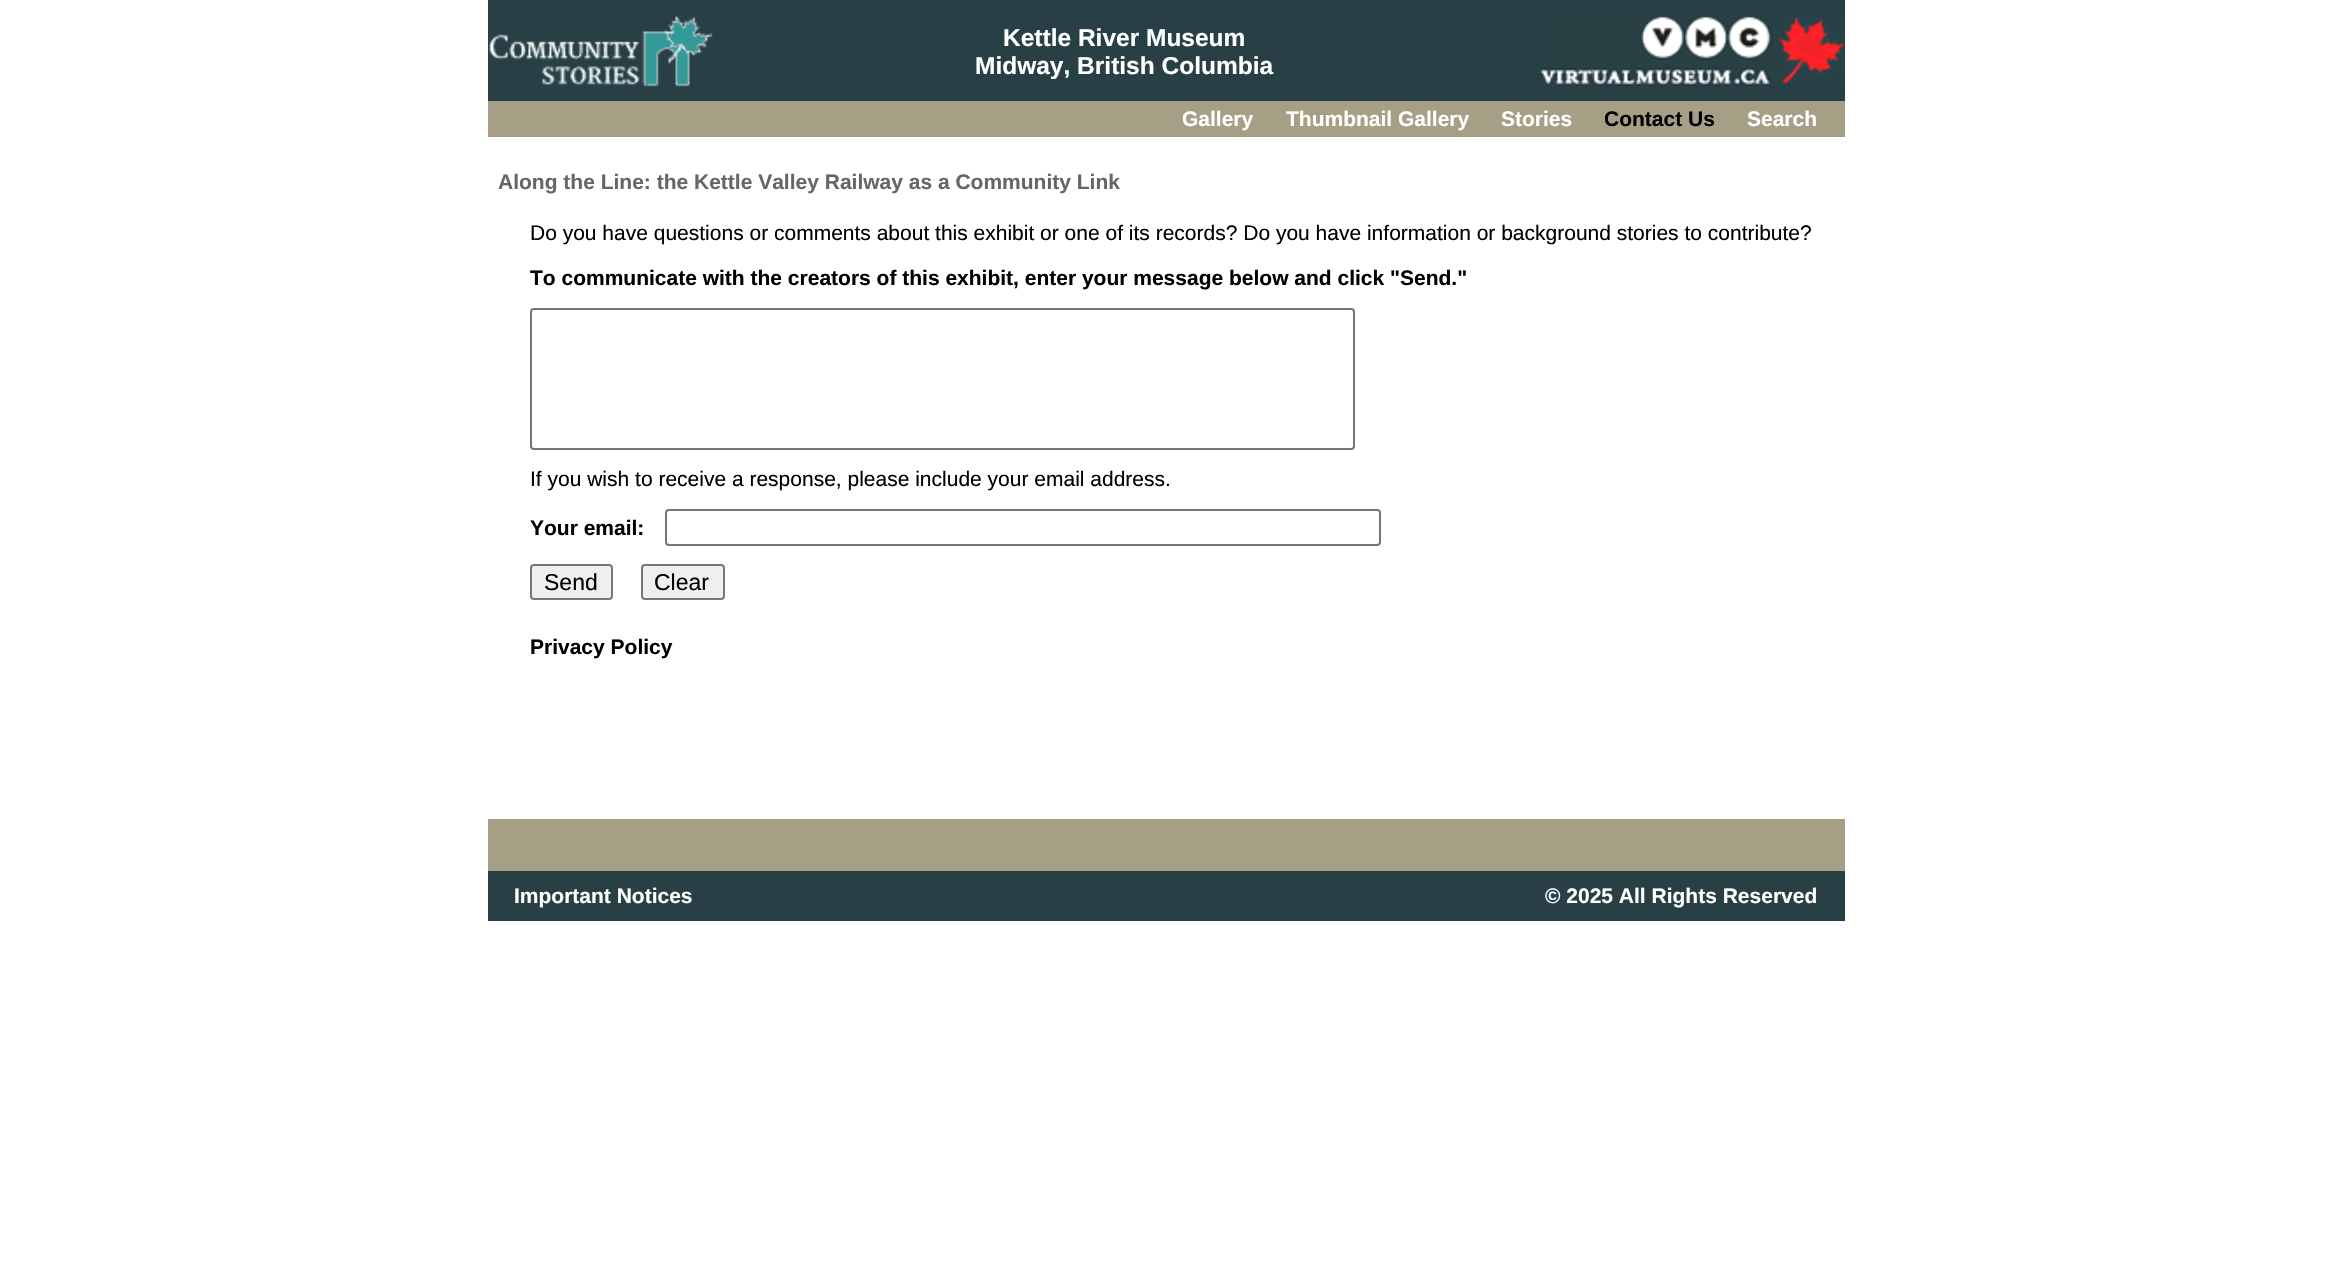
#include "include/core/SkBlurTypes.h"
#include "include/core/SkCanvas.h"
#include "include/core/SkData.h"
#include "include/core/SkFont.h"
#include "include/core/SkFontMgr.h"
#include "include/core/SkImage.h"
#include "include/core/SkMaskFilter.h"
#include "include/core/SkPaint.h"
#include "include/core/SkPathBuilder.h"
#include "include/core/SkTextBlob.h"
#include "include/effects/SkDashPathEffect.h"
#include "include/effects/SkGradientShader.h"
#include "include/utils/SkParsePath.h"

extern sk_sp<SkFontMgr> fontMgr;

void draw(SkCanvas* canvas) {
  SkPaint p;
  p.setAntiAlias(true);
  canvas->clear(SK_ColorWHITE);
  p.setColor(SkColorSetRGB(40, 63, 69));
  canvas->drawRect(SkRect::MakeLTRB(488, 0, 1845, 101), p);
  canvas->drawImageRect(SkImages::DeferredFromEncodedData(SkData::MakeFromFileName("images/1.png")), SkRect::MakeLTRB(489, 15, 713, 87), SkSamplingOptions());
  canvas->drawImageRect(SkImages::DeferredFromEncodedData(SkData::MakeFromFileName("images/2.png")), SkRect::MakeLTRB(1540, 14, 1845, 86), SkSamplingOptions());
  p.setColor(SkColorSetRGB(167, 159, 133));
  canvas->drawRect(SkRect::MakeLTRB(488, 101, 1845, 137), p);
  p.setStyle(SkPaint::kStroke_Style);
  p.setStrokeWidth(2);
  p.setColor(SkColorSetRGB(118, 118, 118));
  canvas->drawRoundRect(SkRect::MakeLTRB(531, 309, 1354, 449), 3, 3, p);
  canvas->drawRoundRect(SkRect::MakeLTRB(666, 510, 1380, 545), 3, 3, p);
  p.setStyle(SkPaint::kFill_Style);
  p.setColor(SkColorSetRGB(239, 239, 239));
  canvas->drawRoundRect(SkRect::MakeLTRB(531, 565, 612, 599), 3, 3, p);
  p.setStyle(SkPaint::kStroke_Style);
  p.setColor(SkColorSetRGB(118, 118, 118));
  canvas->drawRoundRect(SkRect::MakeLTRB(531, 565, 612, 599), 3, 3, p);
  p.setStyle(SkPaint::kFill_Style);
  p.setColor(SkColorSetRGB(239, 239, 239));
  canvas->drawRoundRect(SkRect::MakeLTRB(642, 565, 724, 599), 3, 3, p);
  p.setStyle(SkPaint::kStroke_Style);
  p.setColor(SkColorSetRGB(118, 118, 118));
  canvas->drawRoundRect(SkRect::MakeLTRB(642, 565, 724, 599), 3, 3, p);
  p.setStyle(SkPaint::kFill_Style);
  p.setColor(SkColorSetRGB(167, 159, 133));
  canvas->drawRect(SkRect::MakeLTRB(488, 819, 1845, 871), p);
  p.setColor(SkColorSetRGB(40, 63, 69));
  canvas->drawRect(SkRect::MakeLTRB(488, 871, 1845, 921), p);
  SkFont font1(fontMgr->matchFamilyStyle("Liberation Sans", SkFontStyle::Bold()), 24.5f);
  font1.setSubpixel(true);
  p.setColor(SK_ColorWHITE);
  canvas->drawString("Kettle River Museum", 1003, 46, font1, p);
  canvas->drawString("Midway, British Columbia", 975, 74, font1, p);
  SkFont font2(fontMgr->matchFamilyStyle("Liberation Sans", SkFontStyle::Bold()), 21);
  font2.setSubpixel(true);
  canvas->drawString("Gallery", 1182, 126, font2, p);
  canvas->drawString("Thumbnail Gallery", 1286, 126, font2, p);
  canvas->drawString("Stories", 1501, 126, font2, p);
  p.setColor(SK_ColorBLACK);
  canvas->drawString("Contact Us", 1604, 126, font2, p);
  p.setColor(SK_ColorWHITE);
  canvas->drawString("Search", 1747, 126, font2, p);
  p.setColor(SkColorSetRGB(102, 102, 102));
  canvas->drawString("Along the Line: the Kettle Valley Railway as a Community Link", 498, 189, font2, p);
  SkFont font3(fontMgr->matchFamilyStyle("Liberation Sans", SkFontStyle::Normal()), 21);
  font3.setSubpixel(true);
  p.setColor(SK_ColorBLACK);
  canvas->drawString("Do you have questions or comments about this exhibit or one of its records? Do you have information or background stories to contribute?", 530, 240, font3, p);
  canvas->drawString("To communicate with the creators of this exhibit, enter your message below and click \"Send.\"", 530, 285, font2, p);
  canvas->drawString("If you wish to receive a response, please include your email address.", 530, 486, font3, p);
  canvas->drawString("Your email:", 530, 535, font2, p);
  SkFont font4(fontMgr->matchFamilyStyle("Liberation Sans", SkFontStyle::Normal()), 23);
  font4.setSubpixel(true);
  canvas->drawString("Send", 544, 590, font4, p);
  canvas->drawString("Clear", 654, 590, font4, p);
  canvas->drawString("Privacy Policy", 530, 654, font2, p);
  p.setColor(SK_ColorWHITE);
  canvas->drawString("Important Notices", 514, 903, font2, p);
  canvas->drawString("© 2025 All Rights Reserved", 1545, 903, font2, p);
}
